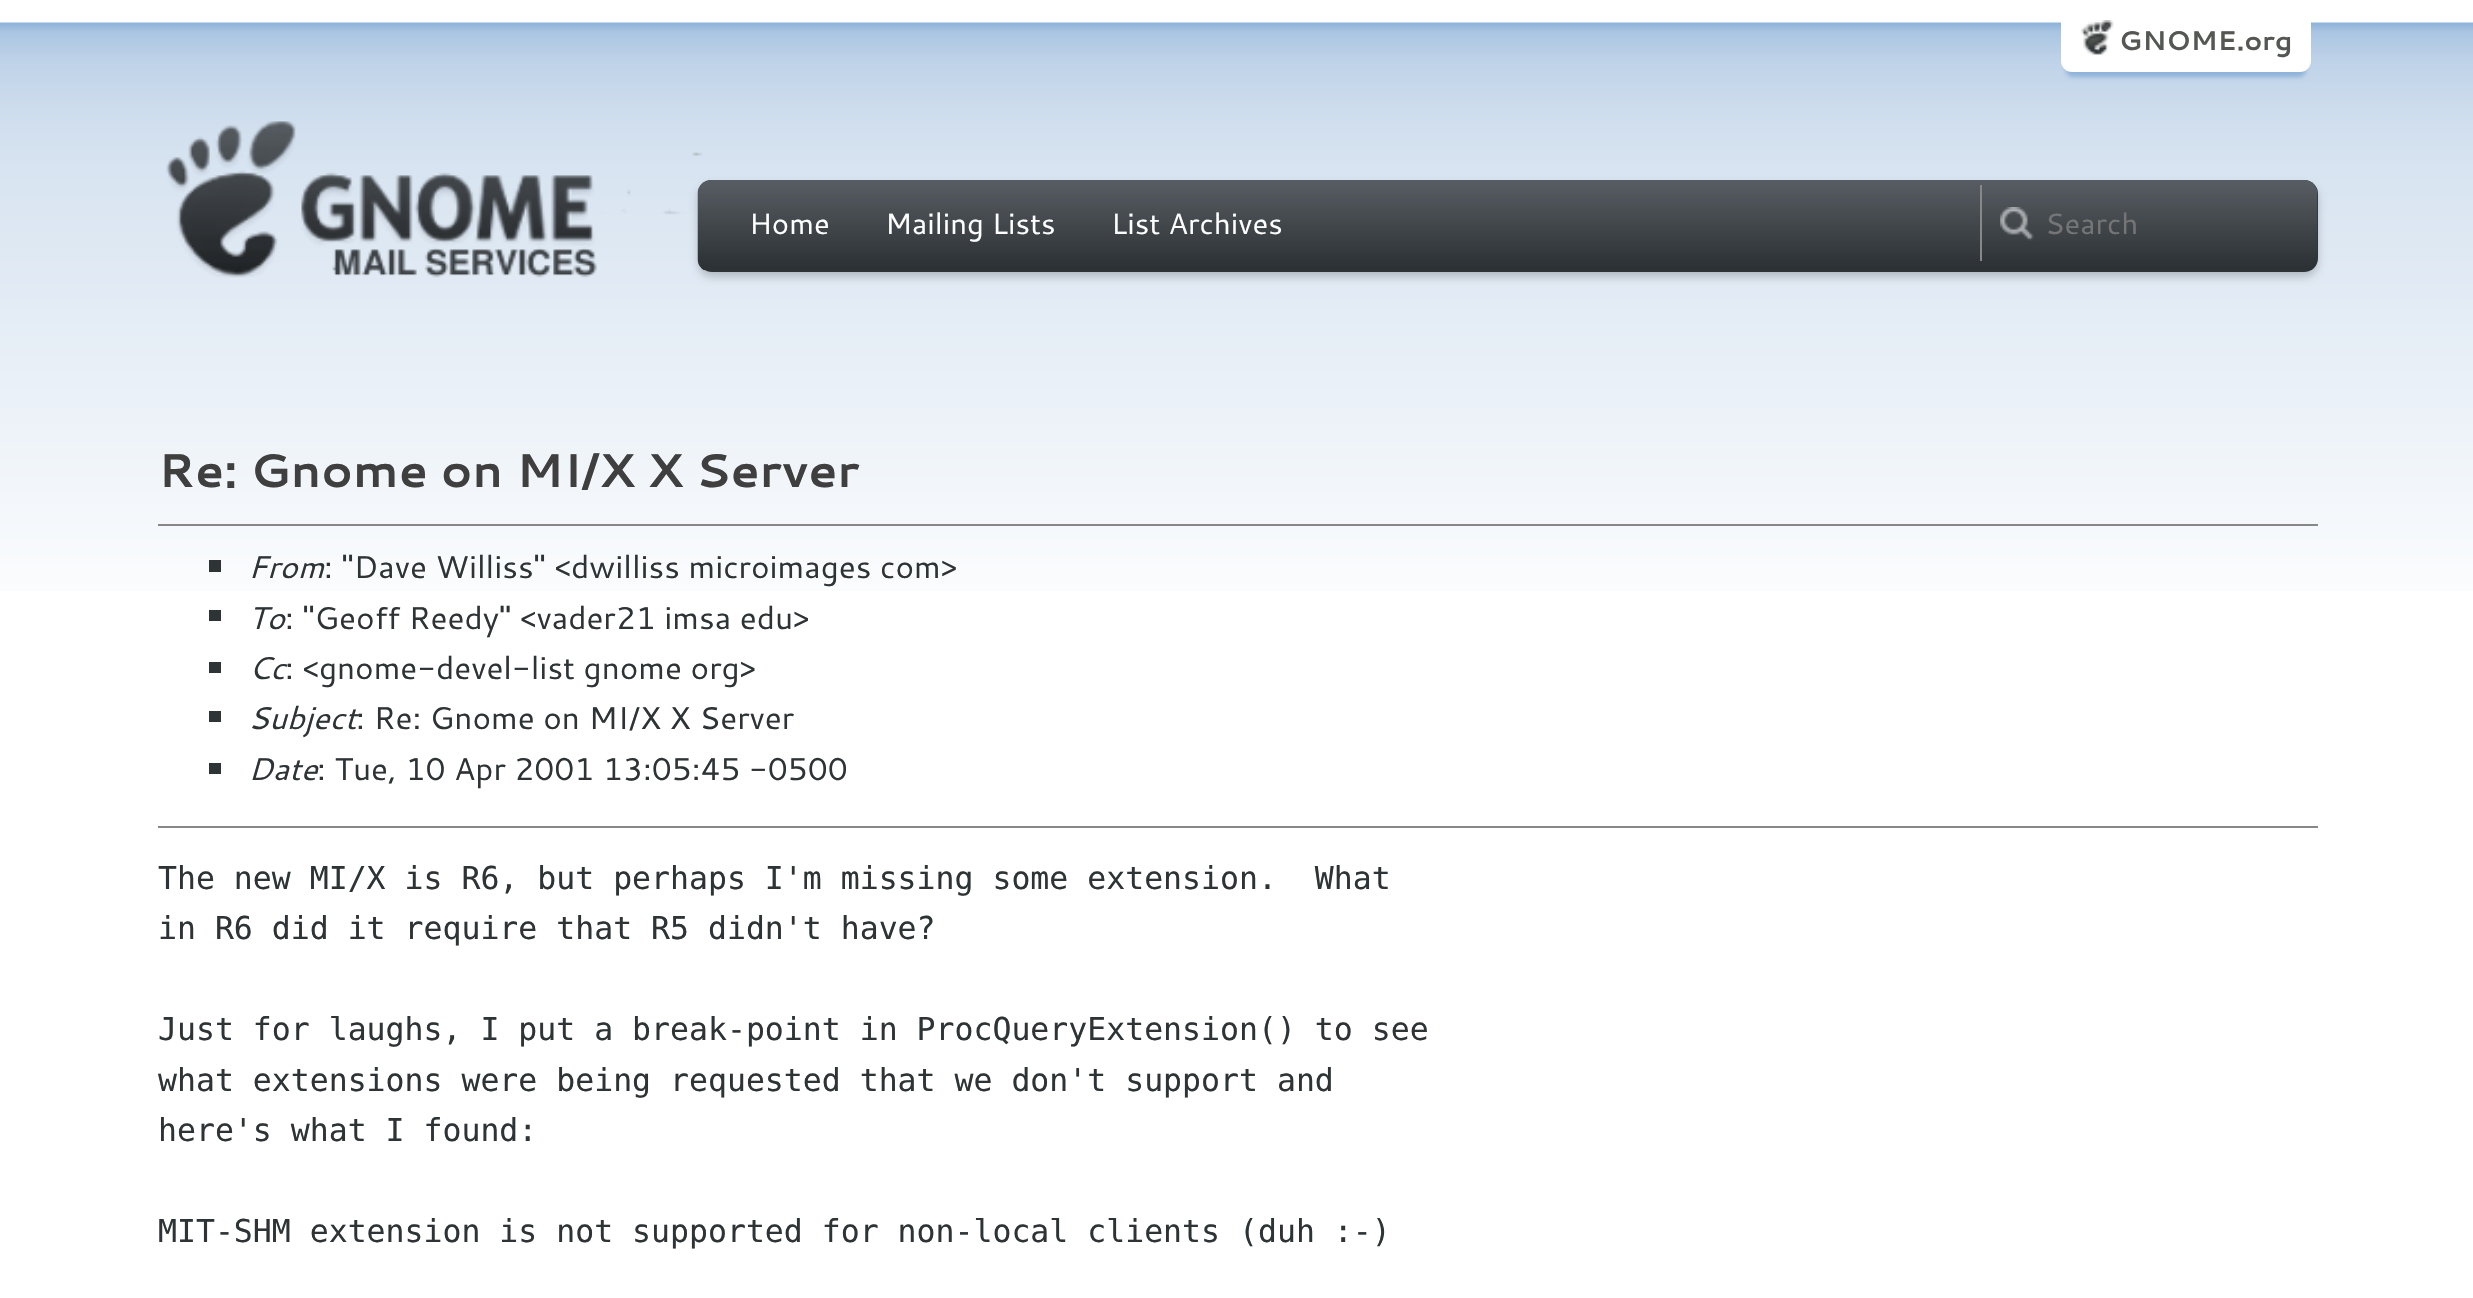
#include "include/core/SkBlurTypes.h"
#include "include/core/SkCanvas.h"
#include "include/core/SkData.h"
#include "include/core/SkFont.h"
#include "include/core/SkFontMgr.h"
#include "include/core/SkImage.h"
#include "include/core/SkMaskFilter.h"
#include "include/core/SkPaint.h"
#include "include/core/SkPathBuilder.h"
#include "include/core/SkTextBlob.h"
#include "include/effects/SkDashPathEffect.h"
#include "include/effects/SkGradientShader.h"
#include "include/utils/SkParsePath.h"

extern sk_sp<SkFontMgr> fontMgr;

void draw(SkCanvas* canvas) {
  SkPaint p;
  p.setAntiAlias(true);
  canvas->clear(SK_ColorWHITE);
  canvas->drawImageRect(SkImages::DeferredFromEncodedData(SkData::MakeFromFileName("images/1.png")), SkRect::MakeLTRB(0, 22, 2473, 591), SkSamplingOptions());
  p.setColor(SkColorSetRGB(143, 179, 217));
  p.setMaskFilter(SkMaskFilter::MakeBlur(kNormal_SkBlurStyle, 2));
  canvas->drawRoundRect(SkRect::MakeLTRB(2066, 23, 2306, 77), 7, 7, p);
  p.setMaskFilter(nullptr);
  p.setColor(SK_ColorWHITE);
  canvas->drawRoundRect(SkRect::MakeLTRB(2061, 9, 2311, 72), 11, 11, p);
  canvas->drawImageRect(SkImages::DeferredFromEncodedData(SkData::MakeFromFileName("images/2.png")), SkRect::MakeLTRB(2080, 20, 2114, 55), SkSamplingOptions());
  canvas->drawImageRect(SkImages::DeferredFromEncodedData(SkData::MakeFromFileName("images/3.png")), SkRect::MakeLTRB(166, 121, 703, 278), SkSamplingOptions());
  p.setColor(SkColorSetARGB(51, 0, 0, 0));
  p.setMaskFilter(SkMaskFilter::MakeBlur(kNormal_SkBlurStyle, 4.5f));
  canvas->drawRoundRect(SkRect::MakeLTRB(698, 185, 2318, 277), 14, 14, p);
  p.setMaskFilter(nullptr);
  p.setColor(SkColorSetRGB(46, 52, 54));
  canvas->drawRoundRect(SkRect::MakeLTRB(698, 180, 2318, 272), 14, 14, p);
  canvas->drawImageRect(SkImages::DeferredFromEncodedData(SkData::MakeFromFileName("images/4.png")), SkRect::MakeLTRB(697, 180, 2318, 270), SkSamplingOptions());
  canvas->drawImageRect(SkImages::DeferredFromEncodedData(SkData::MakeFromFileName("images/5.png")), SkRect::MakeLTRB(2000, 207, 2034, 241), SkSamplingOptions());
  p.setColor(SkColorSetRGB(136, 136, 136));
  canvas->drawRect(SkRect::MakeLTRB(1980, 185, 1982, 261), p);
  canvas->drawRect(SkRect::MakeLTRB(158, 524, 2318, 526), p);
  p.setColor(SkColorSetRGB(46, 52, 54));
  canvas->drawRect(SkRect::MakeLTRB(209, 560, 221, 572), p);
  canvas->drawRect(SkRect::MakeLTRB(209, 610, 221, 621), p);
  canvas->drawRect(SkRect::MakeLTRB(209, 662, 221, 673), p);
  canvas->drawRect(SkRect::MakeLTRB(209, 711, 221, 722), p);
  canvas->drawRect(SkRect::MakeLTRB(209, 763, 221, 774), p);
  p.setColor(SkColorSetRGB(136, 136, 136));
  canvas->drawRect(SkRect::MakeLTRB(158, 826, 2318, 828), p);
  SkFont font1(fontMgr->matchFamilyStyle("Cantarell", SkFontStyle::Bold()), 27);
  font1.setSubpixel(true);
  p.setColor(SkColorSetRGB(85, 87, 83));
  canvas->drawString("GNOME.org", 2119, 50, font1, p);
  SkFont font2(fontMgr->matchFamilyStyle("Cantarell", SkFontStyle::Normal()), 29.25f);
  font2.setSubpixel(true);
  p.setColor(SK_ColorWHITE);
  canvas->drawString("Home", 749, 234, font2, p);
  canvas->drawString("Mailing Lists", 885, 234, font2, p);
  canvas->drawString("List Archives", 1111, 234, font2, p);
  p.setColor(SkColorSetRGB(117, 117, 117));
  canvas->drawString("Search", 2045, 234, font2, p);
  SkFont font3(fontMgr->matchFamilyStyle("Cantarell", SkFontStyle::Bold()), 47.25f);
  font3.setSubpixel(true);
  p.setColor(SkColorSetRGB(63, 63, 63));
  canvas->drawString("Re: Gnome on MI/X X Server", 158, 487, font3, p);
  SkFont font4(fontMgr->matchFamilyStyle("Cantarell", SkFontStyle::Italic()), 31.5f);
  font4.setSubpixel(true);
  p.setColor(SkColorSetRGB(46, 52, 54));
  canvas->drawString("From", 248, 578, font4, p);
  SkFont font5(fontMgr->matchFamilyStyle("Cantarell", SkFontStyle::Normal()), 31.5f);
  font5.setSubpixel(true);
  canvas->drawString(": \"Dave Williss\" <dwilliss microimages com>", 324, 578, font5, p);
  canvas->drawString("To", 248, 629, font4, p);
  canvas->drawString(": \"Geoff Reedy\" <vader21 imsa edu>", 285, 629, font5, p);
  canvas->drawString("Cc", 248, 679, font4, p);
  canvas->drawString(": <gnome-devel-list gnome org>", 285, 679, font5, p);
  canvas->drawString("Subject", 248, 729, font4, p);
  canvas->drawString(": Re: Gnome on MI/X X Server", 356, 729, font5, p);
  canvas->drawString("Date", 248, 780, font4, p);
  canvas->drawString(": Tue, 10 Apr 2001 13:05:45 -0500", 317, 780, font5, p);
  SkFont font6(fontMgr->matchFamilyStyle("DejaVu Sans Mono", SkFontStyle::Normal()), 31.5f);
  font6.setSubpixel(true);
  canvas->drawString("The new MI/X is R6, but perhaps I'm missing some extension.  What", 158, 889, font6, p);
  canvas->drawString("in R6 did it require that R5 didn't have?", 158, 939, font6, p);
  canvas->drawString("Just for laughs, I put a break-point in ProcQueryExtension() to see", 158, 1040, font6, p);
  canvas->drawString("what extensions were being requested that we don't support and", 158, 1091, font6, p);
  canvas->drawString("here's what I found:", 158, 1141, font6, p);
  canvas->drawString("MIT-SHM extension is not supported for non-local clients (duh :-)", 158, 1242, font6, p);
}
